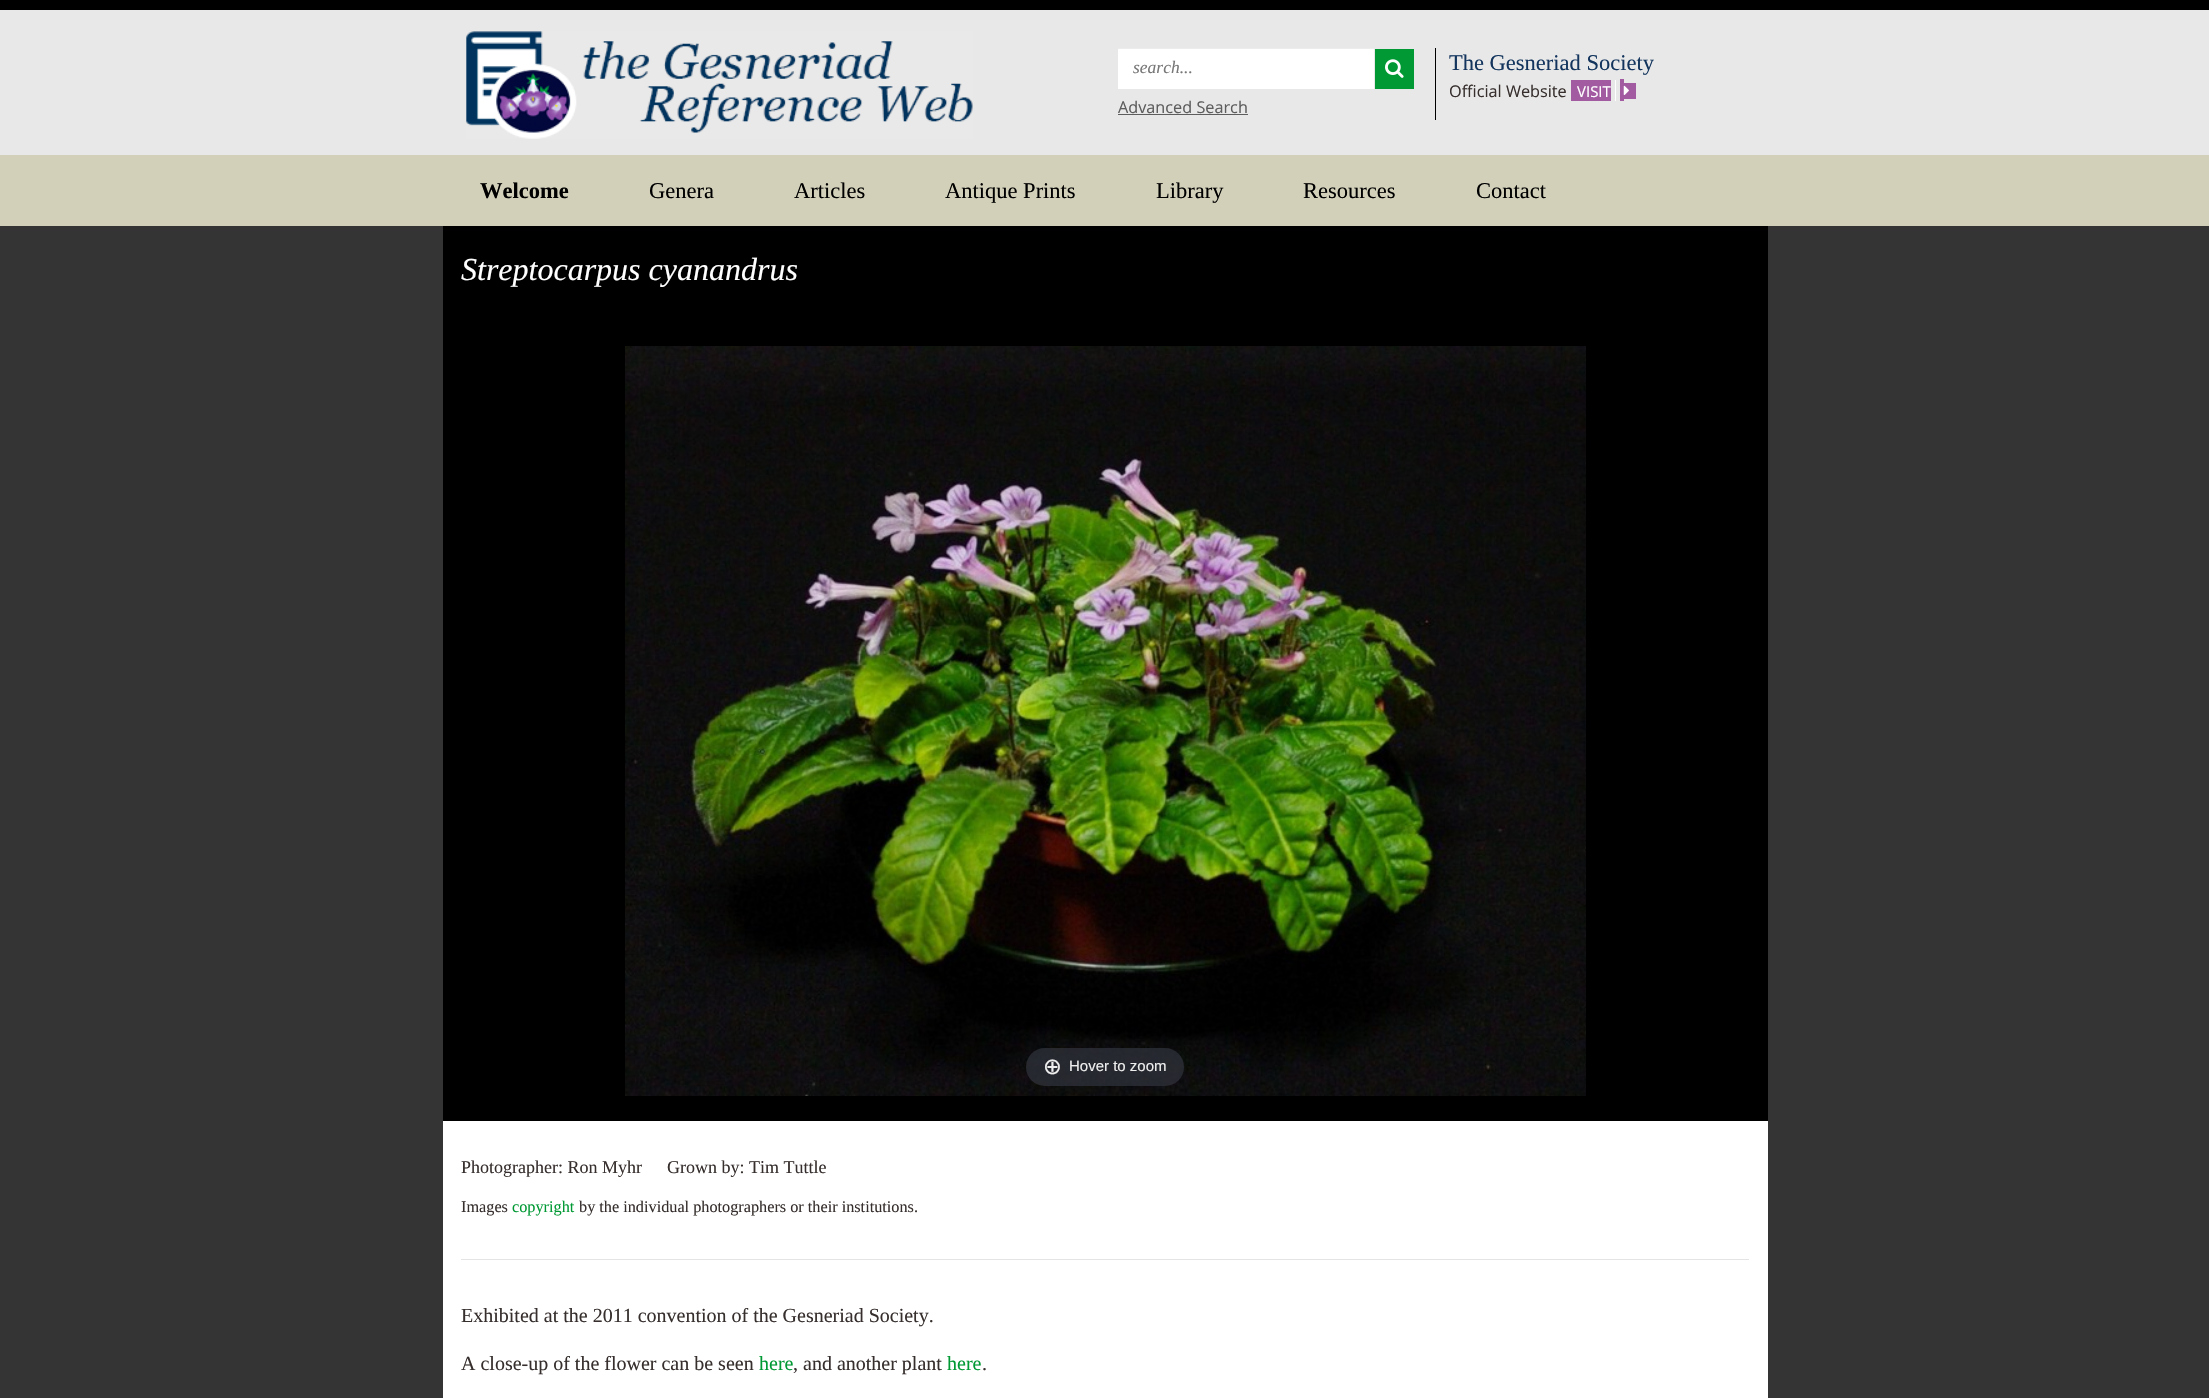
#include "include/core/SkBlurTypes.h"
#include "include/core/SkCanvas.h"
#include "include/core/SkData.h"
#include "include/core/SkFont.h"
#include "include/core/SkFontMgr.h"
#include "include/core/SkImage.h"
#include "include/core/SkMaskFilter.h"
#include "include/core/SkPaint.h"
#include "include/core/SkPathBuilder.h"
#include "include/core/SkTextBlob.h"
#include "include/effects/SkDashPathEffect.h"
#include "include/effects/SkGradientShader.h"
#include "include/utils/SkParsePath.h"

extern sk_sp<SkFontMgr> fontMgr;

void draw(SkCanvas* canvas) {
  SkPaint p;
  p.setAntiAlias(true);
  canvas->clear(SkColorSetRGB(52, 52, 52));
  p.setColor(SkColorSetRGB(232, 232, 232));
  canvas->drawRect(SkRect::MakeLTRB(0, 10, 2209, 155), p);
  p.setColor(SK_ColorBLACK);
  canvas->drawRect(SkRect::MakeLTRB(0, 0, 2209, 10), p);
  canvas->drawImageRect(SkImages::DeferredFromEncodedData(SkData::MakeFromFileName("images/1.png")), SkRect::MakeLTRB(466, 31, 973, 139), SkSamplingOptions());
  canvas->drawRect(SkRect::MakeLTRB(1435, 48, 1436, 120), p);
  p.setColor(SK_ColorWHITE);
  canvas->drawRect(SkRect::MakeLTRB(1118, 49, 1374, 89), p);
  p.setColor(SkColorSetRGB(236, 236, 236));
  canvas->drawRect(SkRect::MakeLTRB(1118, 48, 1374, 49), p);
  p.setColor(SkColorSetRGB(0, 153, 51));
  canvas->drawRect(SkRect::MakeLTRB(1375, 49, 1414, 89), p);
  canvas->drawImageRect(SkImages::DeferredFromEncodedData(SkData::MakeFromFileName("images/2.png")), SkRect::MakeLTRB(1385, 59, 1404, 78), SkSamplingOptions());
  p.setColor(SkColorSetRGB(93, 93, 93));
  canvas->drawRect(SkRect::MakeLTRB(1118, 114, 1248, 115), p);
  p.setColor(SkColorSetRGB(162, 91, 161));
  canvas->drawRect(SkRect::MakeLTRB(1571, 80, 1611, 101), p);
  canvas->drawRect(SkRect::MakeLTRB(1620, 79, 1624, 101), p);
  canvas->drawRect(SkRect::MakeLTRB(1624, 83, 1636, 99), p);
  p.setColor(SK_ColorWHITE);
  canvas->drawRect(SkRect::MakeLTRB(1615, 80, 1616, 101), p);
  canvas->drawImageRect(SkImages::DeferredFromEncodedData(SkData::MakeFromFileName("images/3.png")), SkRect::MakeLTRB(1623, 85, 1629, 95), SkSamplingOptions());
  p.setColor(SkColorSetRGB(210, 208, 185));
  canvas->drawRect(SkRect::MakeLTRB(0, 155, 2209, 226), p);
  p.setColor(SK_ColorBLACK);
  canvas->drawRect(SkRect::MakeLTRB(443, 226, 1768, 1121), p);
  canvas->drawImageRect(SkImages::DeferredFromEncodedData(SkData::MakeFromFileName("images/4.png")), SkRect::MakeLTRB(625, 346, 1586, 1096), SkSamplingOptions());
  p.setColor(SkColorSetARGB(179, 49, 51, 61));
  canvas->drawRoundRect(SkRect::MakeLTRB(1026, 1048, 1184, 1086), 19, 19, p);
  p.setColor(SK_ColorWHITE);
  canvas->drawRect(SkRect::MakeLTRB(443, 1121, 1768, 1398), p);
  p.setColor(SkColorSetRGB(229, 228, 228));
  canvas->drawRect(SkRect::MakeLTRB(461, 1259, 1749, 1260), p);
  SkFont font1(fontMgr->matchFamilyStyle("Liberation Serif", SkFontStyle::Italic()), 17.5f);
  font1.setSubpixel(true);
  p.setColor(SkColorSetRGB(119, 119, 119));
  canvas->drawString("search...", 1133, 73, font1, p);
  SkFont font2(fontMgr->matchFamilyStyle("Open Sans", SkFontStyle::Normal()), 16.25f);
  font2.setSubpixel(true);
  p.setColor(SkColorSetRGB(93, 93, 93));
  canvas->drawString("Advanced Search", 1118, 113, font2, p);
  SkFont font3(fontMgr->matchFamilyStyle("Liberation Serif", SkFontStyle::Normal()), 22.5f);
  font3.setSubpixel(true);
  p.setColor(SkColorSetRGB(18, 52, 93));
  canvas->drawString("The Gesneriad Society", 1449, 70, font3, p);
  p.setColor(SkColorSetRGB(54, 47, 45));
  canvas->drawString("Official Website", 1449, 97, font2, p);
  SkFont font4(fontMgr->matchFamilyStyle("Open Sans", SkFontStyle::Normal()), 15);
  font4.setSubpixel(true);
  p.setColor(SK_ColorWHITE);
  canvas->drawString("VISIT", 1577, 97, font4, p);
  SkFont font5(fontMgr->matchFamilyStyle("Liberation Serif", SkFontStyle::Bold()), 22.5f);
  font5.setSubpixel(true);
  p.setColor(SK_ColorBLACK);
  canvas->drawString("Welcome", 480, 198, font5, p);
  canvas->drawString("Genera", 649, 198, font3, p);
  canvas->drawString("Articles", 794, 198, font3, p);
  canvas->drawString("Antique Prints", 945, 198, font3, p);
  canvas->drawString("Library", 1156, 198, font3, p);
  canvas->drawString("Resources", 1303, 198, font3, p);
  canvas->drawString("Contact", 1476, 198, font3, p);
  SkFont font6(fontMgr->matchFamilyStyle("Liberation Serif", SkFontStyle::Italic()), 32);
  font6.setSubpixel(true);
  p.setColor(SK_ColorWHITE);
  canvas->drawString("Streptocarpus cyanandrus", 461, 280, font6, p);
  SkFont font7(fontMgr->matchFamilyStyle("DejaVu Sans", SkFontStyle::Normal()), 22.5f);
  font7.setSubpixel(true);
  p.setColor(SkColorSetRGB(238, 238, 238));
  canvas->drawString("⊕", 1043, 1074, font7, p);
  SkFont font8(fontMgr->matchFamilyStyle("Liberation Sans", SkFontStyle::Normal()), 15);
  font8.setSubpixel(true);
  canvas->drawString("Hover to zoom", 1069, 1071, font8, p);
  SkFont font9(fontMgr->matchFamilyStyle("Liberation Serif", SkFontStyle::Normal()), 18);
  font9.setSubpixel(true);
  p.setColor(SkColorSetRGB(54, 47, 45));
  canvas->drawString("Photographer: Ron Myhr", 461, 1173, font9, p);
  canvas->drawString("Grown by: Tim Tuttle", 667, 1173, font9, p);
  SkFont font10(fontMgr->matchFamilyStyle("Liberation Serif", SkFontStyle::Normal()), 16.25f);
  font10.setSubpixel(true);
  canvas->drawString("Images", 461, 1212, font10, p);
  p.setColor(SkColorSetRGB(0, 153, 51));
  canvas->drawString("copyright", 512, 1212, font10, p);
  p.setColor(SkColorSetRGB(54, 47, 45));
  canvas->drawString("by the individual photographers or their institutions.", 579, 1212, font10, p);
  SkFont font11(fontMgr->matchFamilyStyle("Liberation Serif", SkFontStyle::Normal()), 20);
  font11.setSubpixel(true);
  canvas->drawString("Exhibited at the 2011 convention of the Gesneriad Society.", 461, 1322, font11, p);
  canvas->drawString("A close-up of the flower can be seen", 461, 1370, font11, p);
  p.setColor(SkColorSetRGB(0, 153, 51));
  canvas->drawString("here", 759, 1370, font11, p);
  p.setColor(SkColorSetRGB(54, 47, 45));
  canvas->drawString(", and another plant", 793, 1370, font11, p);
  p.setColor(SkColorSetRGB(0, 153, 51));
  canvas->drawString("here", 947, 1370, font11, p);
  p.setColor(SkColorSetRGB(54, 47, 45));
  canvas->drawString(".", 982, 1370, font11, p);
}
